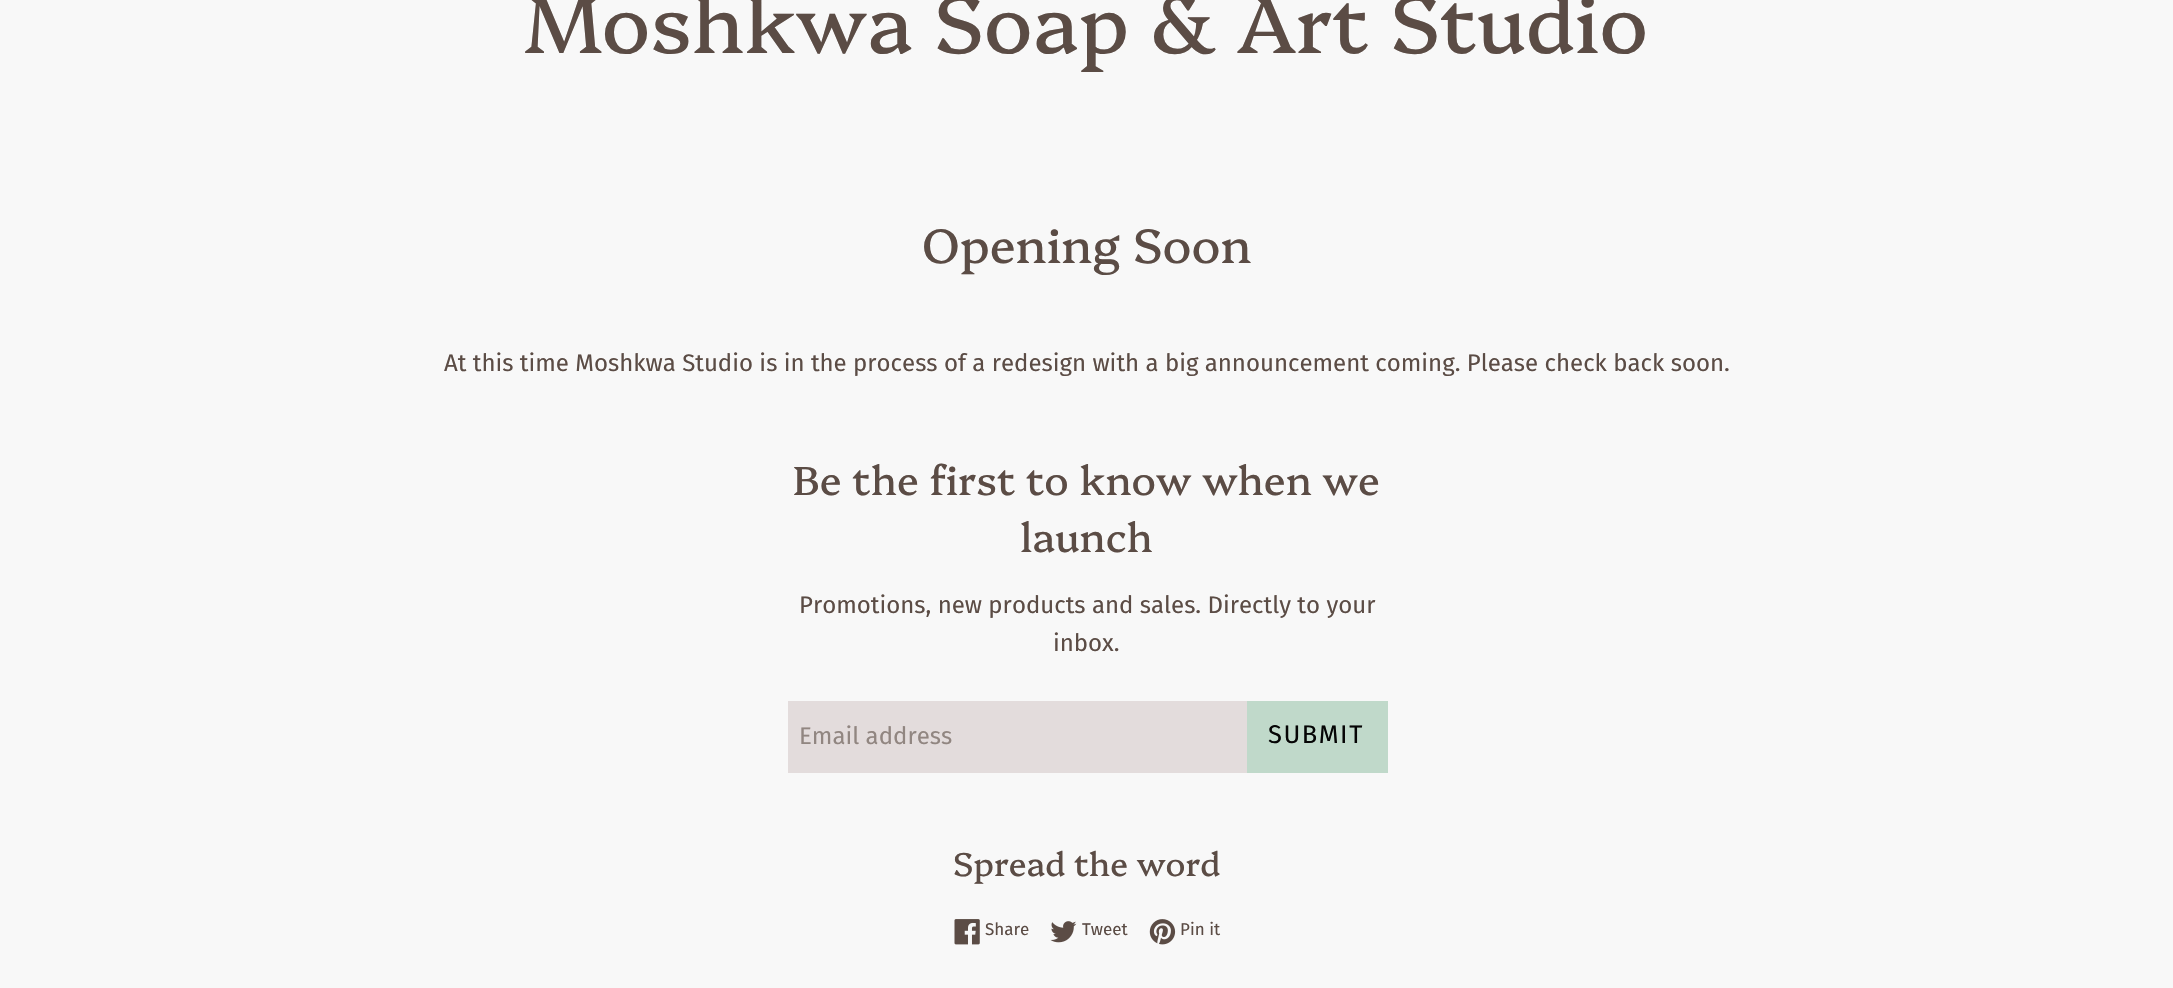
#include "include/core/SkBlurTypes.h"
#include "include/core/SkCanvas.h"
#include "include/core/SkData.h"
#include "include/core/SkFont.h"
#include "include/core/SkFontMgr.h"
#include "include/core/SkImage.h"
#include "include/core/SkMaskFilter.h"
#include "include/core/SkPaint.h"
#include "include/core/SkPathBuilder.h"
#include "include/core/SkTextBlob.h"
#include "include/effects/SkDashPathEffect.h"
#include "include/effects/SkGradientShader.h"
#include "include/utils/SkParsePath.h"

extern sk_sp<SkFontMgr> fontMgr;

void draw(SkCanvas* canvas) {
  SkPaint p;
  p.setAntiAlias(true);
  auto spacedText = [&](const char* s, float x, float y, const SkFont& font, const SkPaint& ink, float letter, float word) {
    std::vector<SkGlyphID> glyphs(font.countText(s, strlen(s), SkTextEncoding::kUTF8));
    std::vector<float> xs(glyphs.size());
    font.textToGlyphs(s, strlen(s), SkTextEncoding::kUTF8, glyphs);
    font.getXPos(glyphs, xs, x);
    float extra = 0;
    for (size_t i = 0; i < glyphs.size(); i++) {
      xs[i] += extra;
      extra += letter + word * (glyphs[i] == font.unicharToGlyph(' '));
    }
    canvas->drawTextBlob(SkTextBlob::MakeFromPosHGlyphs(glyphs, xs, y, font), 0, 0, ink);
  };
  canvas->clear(SkColorSetRGB(248, 248, 248));
  p.setColor(SkColorSetRGB(227, 220, 220));
  canvas->drawRect(SkRect::MakeLTRB(788, 701, 1247, 773), p);
  p.setColor(SkColorSetRGB(192, 217, 202));
  canvas->drawRect(SkRect::MakeLTRB(1247, 701, 1388, 773), p);
  canvas->drawImageRect(SkImages::DeferredFromEncodedData(SkData::MakeFromFileName("images/1.png")), SkRect::MakeLTRB(954, 919, 980, 945), SkSamplingOptions());
  canvas->drawImageRect(SkImages::DeferredFromEncodedData(SkData::MakeFromFileName("images/2.png")), SkRect::MakeLTRB(1050, 921, 1077, 943), SkSamplingOptions());
  canvas->drawImageRect(SkImages::DeferredFromEncodedData(SkData::MakeFromFileName("images/3.png")), SkRect::MakeLTRB(1149, 919, 1176, 945), SkSamplingOptions());
  SkFont font1(fontMgr->matchFamilyStyle("Platypi", SkFontStyle::Normal()), 81);
  font1.setSubpixel(true);
  p.setColor(SkColorSetRGB(91, 76, 69));
  canvas->drawString("Moshkwa Soap & Art Studio", 525, 53, font1, p);
  SkFont font2(fontMgr->matchFamilyStyle("Platypi", SkFontStyle::Normal()), 48);
  font2.setSubpixel(true);
  canvas->drawString("Opening Soon", 922, 263, font2, p);
  SkFont font3(fontMgr->matchFamilyStyle("Fira Sans", SkFontStyle::Normal()), 24);
  font3.setSubpixel(true);
  canvas->drawString("At this time Moshkwa Studio is in the process of a redesign with a big announcement coming. Please check back soon.", 444, 371, font3, p);
  SkFont font4(fontMgr->matchFamilyStyle("Platypi", SkFontStyle::Normal()), 40.5f);
  font4.setSubpixel(true);
  canvas->drawString("Be the first to know when we", 793, 495, font4, p);
  canvas->drawString("launch", 1020, 552, font4, p);
  canvas->drawString("Promotions, new products and sales. Directly to your", 799, 613, font3, p);
  canvas->drawString("inbox.", 1053, 651, font3, p);
  p.setColor(SkColorSetRGB(145, 134, 129));
  canvas->drawString("Email address", 799, 744, font3, p);
  SkFont font5(fontMgr->matchFamilyStyle("Fira Sans", SkFontStyle::Normal()), 25.5f);
  font5.setSubpixel(true);
  p.setColor(SkColorSetRGB(5, 5, 5));
  spacedText("SUBMIT", 1268, 743, font5, p, 1.5f, 0);
  SkFont font6(fontMgr->matchFamilyStyle("Platypi", SkFontStyle::Normal()), 33);
  font6.setSubpixel(true);
  p.setColor(SkColorSetRGB(91, 76, 69));
  canvas->drawString("Spread the word", 953, 876, font6, p);
  SkFont font7(fontMgr->matchFamilyStyle("Fira Sans", SkFontStyle::Normal()), 17);
  font7.setSubpixel(true);
  canvas->drawString("Share", 985, 935, font7, p);
  canvas->drawString("Tweet", 1082, 935, font7, p);
  canvas->drawString("Pin it", 1180, 935, font7, p);
}
